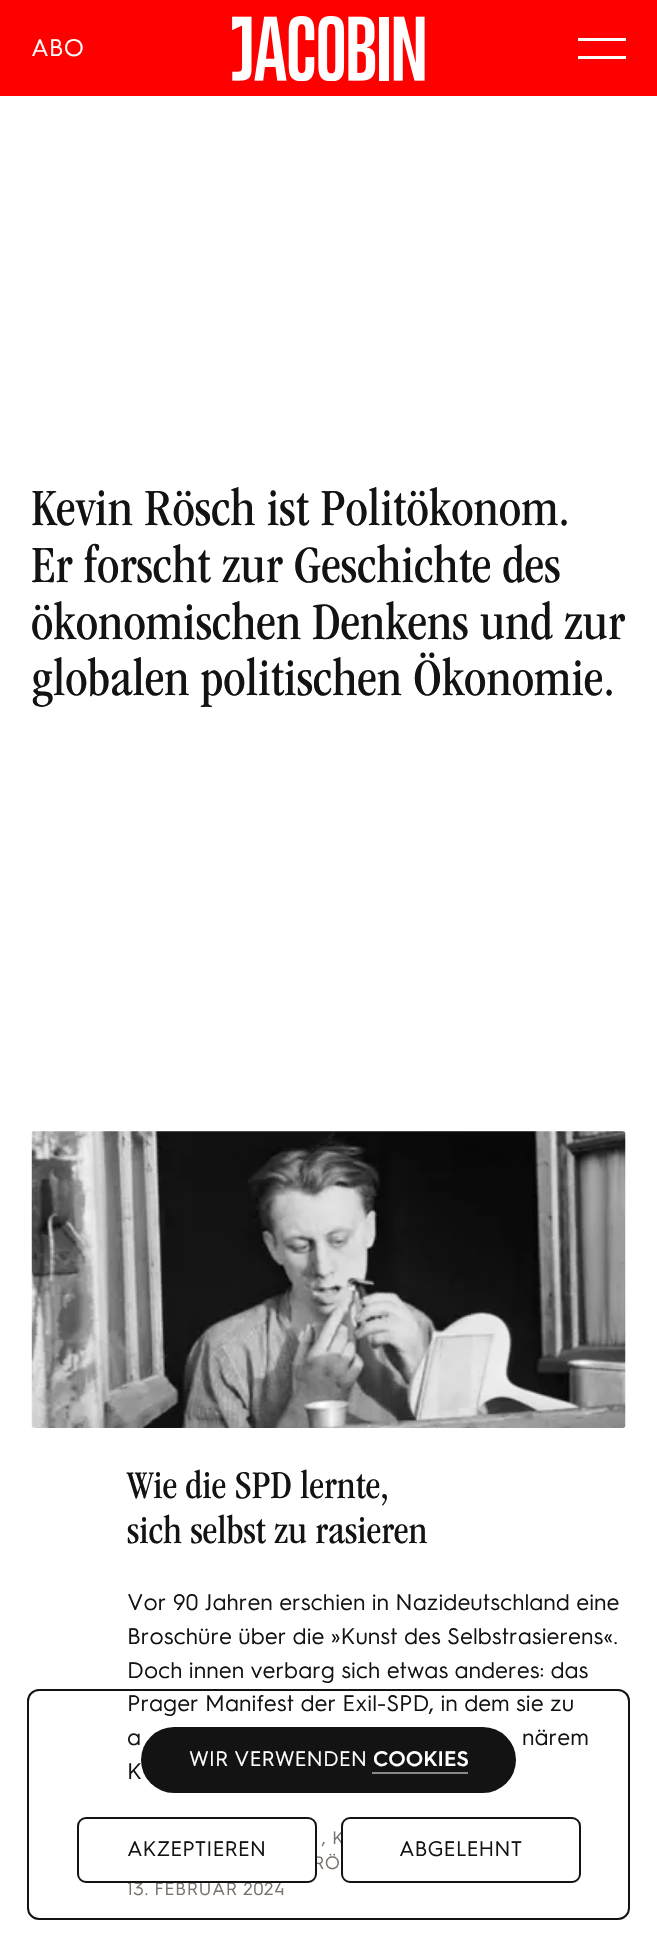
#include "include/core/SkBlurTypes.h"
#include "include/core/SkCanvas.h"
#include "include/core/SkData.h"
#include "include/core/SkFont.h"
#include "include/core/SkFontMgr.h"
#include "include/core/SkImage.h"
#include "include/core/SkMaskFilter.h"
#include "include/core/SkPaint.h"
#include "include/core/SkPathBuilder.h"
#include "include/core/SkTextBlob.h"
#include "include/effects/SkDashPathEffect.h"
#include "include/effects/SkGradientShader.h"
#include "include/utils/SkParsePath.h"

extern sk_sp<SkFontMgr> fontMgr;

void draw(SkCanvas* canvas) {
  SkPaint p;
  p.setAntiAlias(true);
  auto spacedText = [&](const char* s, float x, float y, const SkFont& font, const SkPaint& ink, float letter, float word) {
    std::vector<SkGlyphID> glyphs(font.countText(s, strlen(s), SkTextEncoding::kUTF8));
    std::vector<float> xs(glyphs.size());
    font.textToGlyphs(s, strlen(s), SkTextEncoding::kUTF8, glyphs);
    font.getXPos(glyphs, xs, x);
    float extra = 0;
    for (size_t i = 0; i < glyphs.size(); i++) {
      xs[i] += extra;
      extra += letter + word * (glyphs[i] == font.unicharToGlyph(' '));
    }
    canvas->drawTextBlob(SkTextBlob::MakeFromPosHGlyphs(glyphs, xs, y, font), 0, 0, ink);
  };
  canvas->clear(SkColorSetRGB(255, 0, 0));
  canvas->drawImageRect(SkImages::DeferredFromEncodedData(SkData::MakeFromFileName("images/1.png")), SkRect::MakeLTRB(232, 16, 425, 81), SkSamplingOptions());
  p.setColor(SK_ColorWHITE);
  canvas->drawRect(SkRect::MakeLTRB(578, 38, 626, 41), p);
  canvas->drawRect(SkRect::MakeLTRB(578, 56, 626, 59), p);
  canvas->drawRect(SkRect::MakeLTRB(0, 96, 657, 1944), p);
  canvas->drawImageRect(SkImages::DeferredFromEncodedData(SkData::MakeFromFileName("images/2.png")), SkRect::MakeLTRB(31, 1131, 626, 1428), SkSamplingOptions());
  p.setStyle(SkPaint::kStroke_Style);
  p.setStrokeWidth(2);
  p.setColor(SkColorSetRGB(19, 19, 19));
  canvas->drawRoundRect(SkRect::MakeLTRB(28, 1690, 629, 1919), 11, 11, p);
  p.setStyle(SkPaint::kFill_Style);
  canvas->drawRoundRect(SkRect::MakeLTRB(141, 1727, 516, 1793), 33, 33, p);
  p.setColor(SkColorSetRGB(137, 137, 137));
  canvas->drawRect(SkRect::MakeLTRB(372, 1772, 468, 1774), p);
  SkFont font1(fontMgr->matchFamilyStyle("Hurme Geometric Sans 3", SkFontStyle::Normal()), 24);
  font1.setSubpixel(true);
  p.setColor(SK_ColorWHITE);
  canvas->drawString("ABO", 31, 56, font1, p);
  SkFont font2(fontMgr->matchFamilyStyle("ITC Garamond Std", SkFontStyle::Normal()), 54);
  font2.setSubpixel(true);
  p.setColor(SkColorSetRGB(19, 19, 19));
  canvas->drawString("Kevin Rösch ist Politökonom.", 31, 525, font2, p);
  canvas->drawString("Er forscht zur Geschichte des", 31, 582, font2, p);
  canvas->drawString("ökonomischen Denkens und zur", 31, 639, font2, p);
  canvas->drawString("globalen politischen Ökonomie.", 31, 695, font2, p);
  SkFont font3(fontMgr->matchFamilyStyle("ITC Garamond Std", SkFontStyle::Normal()), 40.5f);
  font3.setSubpixel(true);
  canvas->drawString("Wie die SPD lernte,", 127, 1498, font3, p);
  canvas->drawString("sich selbst zu rasieren", 127, 1543, font3, p);
  SkFont font4(fontMgr->matchFamilyStyle("Hurme Geometric Sans 3", SkFontStyle::Normal()), 22.5f);
  font4.setSubpixel(true);
  canvas->drawString("Vor 90 Jahren erschien in Nazideutschland eine", 127, 1610, font4, p);
  canvas->drawString("Broschüre über die »Kunst des Selbstrasierens«.", 127, 1644, font4, p);
  canvas->drawString("Doch innen verbarg sich etwas anderes: das", 127, 1678, font4, p);
  canvas->drawString("Prager Manifest der Exil-SPD, in dem sie zu", 127, 1711, font4, p);
  canvas->drawString("a", 127, 1745, font4, p);
  canvas->drawString("närem", 522, 1745, font4, p);
  canvas->drawString("K", 127, 1779, font4, p);
  SkFont font5(fontMgr->matchFamilyStyle("Hurme Geometric Sans 3", SkFontStyle::Normal()), 18);
  font5.setSubpixel(true);
  p.setColor(SkColorSetRGB(120, 113, 108));
  spacedText(", K", 322, 1844, font5, p, 0.5f, 0);
  spacedText("RÖ", 313, 1869, font5, p, 0.5f, 0);
  spacedText("13. FEBRUAR 2024", 127, 1895, font5, p, 0.5f, 0);
  SkFont font6(fontMgr->matchFamilyStyle("Hurme Geometric Sans 3", SkFontStyle::Normal()), 21);
  font6.setSubpixel(true);
  p.setColor(SK_ColorWHITE);
  canvas->drawString("WIR VERWENDEN", 189, 1766, font6, p);
  SkFont font7(fontMgr->matchFamilyStyle("Hurme Geometric Sans 3", SkFontStyle(600, SkFontStyle::kNormal_Width, SkFontStyle::kUpright_Slant)), 21);
  font7.setSubpixel(true);
  canvas->drawString("COOKIES", 373, 1766, font7, p);
  canvas->drawRoundRect(SkRect::MakeLTRB(78, 1818, 316, 1882), 8, 8, p);
  p.setStyle(SkPaint::kStroke_Style);
  p.setColor(SkColorSetRGB(19, 19, 19));
  canvas->drawRoundRect(SkRect::MakeLTRB(78, 1818, 316, 1882), 8, 8, p);
  p.setStyle(SkPaint::kFill_Style);
  canvas->drawString("AKZEPTIEREN", 127, 1856, font6, p);
  p.setColor(SK_ColorWHITE);
  canvas->drawRoundRect(SkRect::MakeLTRB(342, 1818, 580, 1882), 8, 8, p);
  p.setStyle(SkPaint::kStroke_Style);
  p.setColor(SkColorSetRGB(19, 19, 19));
  canvas->drawRoundRect(SkRect::MakeLTRB(342, 1818, 580, 1882), 8, 8, p);
  p.setStyle(SkPaint::kFill_Style);
  canvas->drawString("ABGELEHNT", 399, 1856, font6, p);
}
